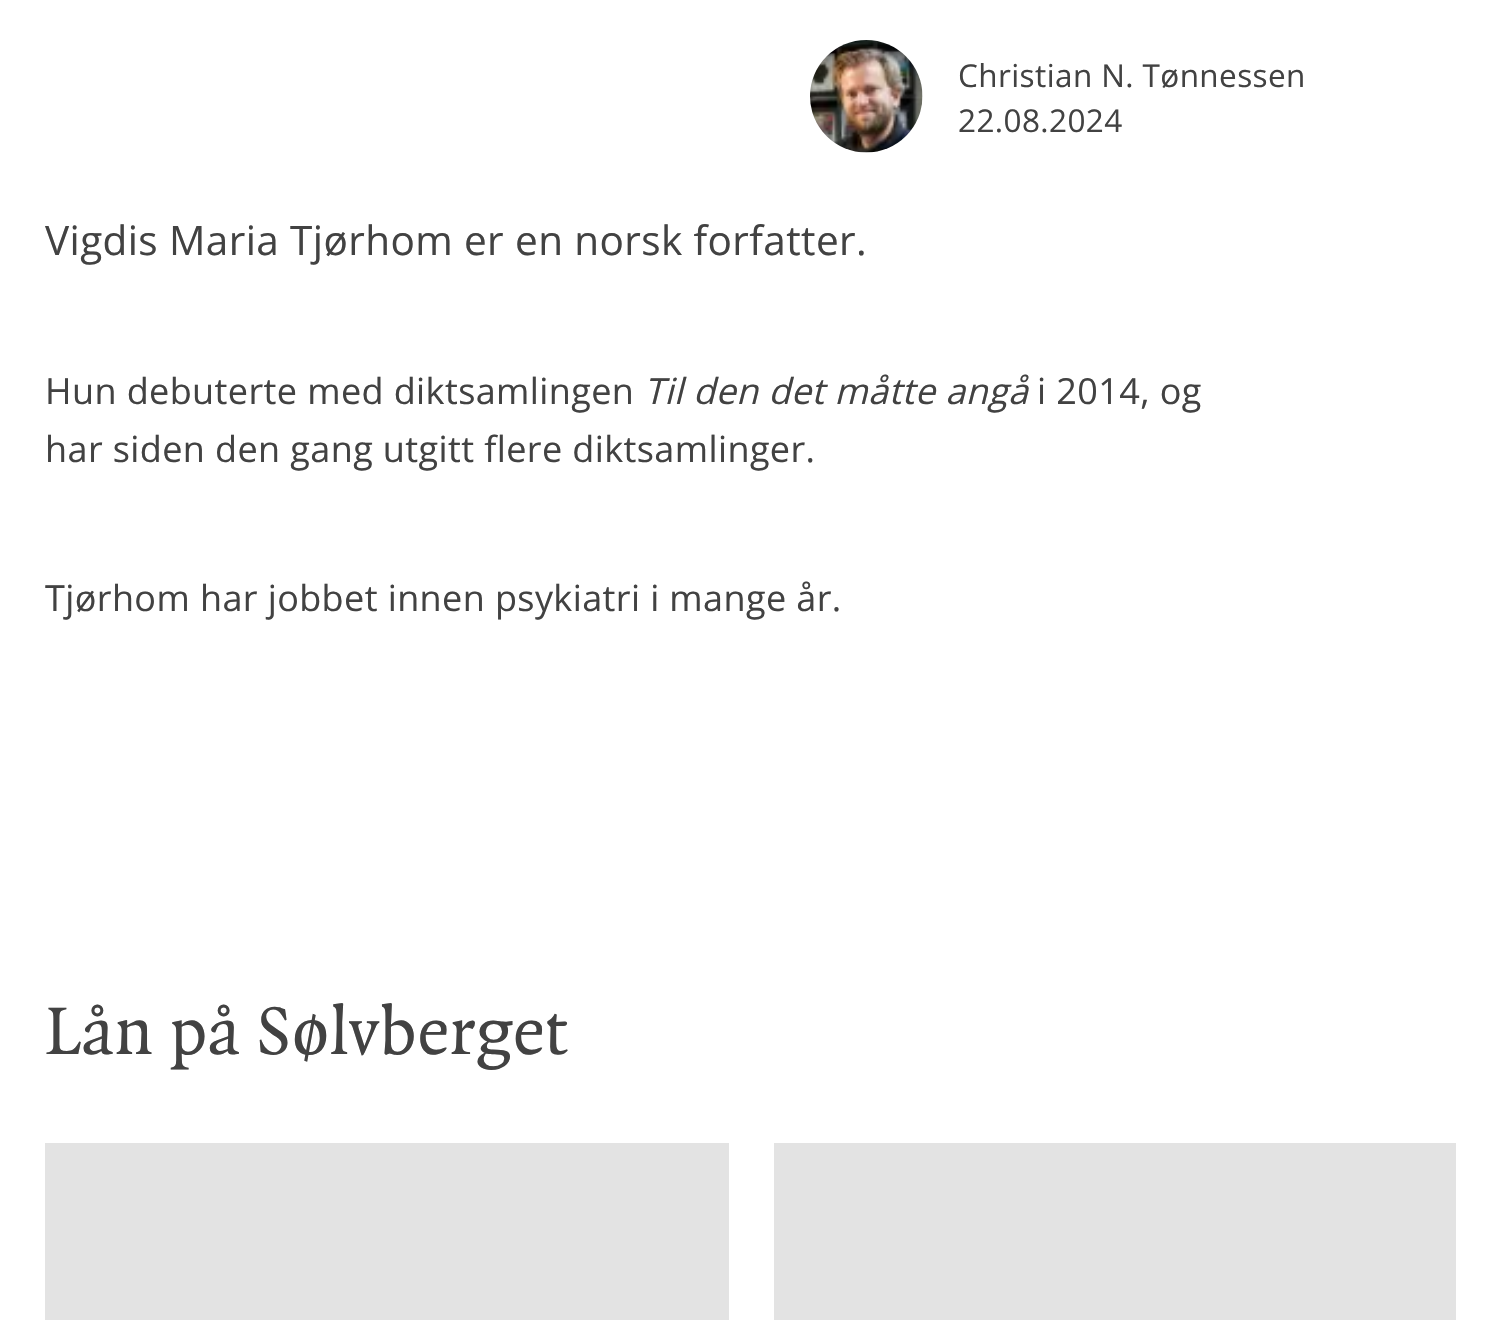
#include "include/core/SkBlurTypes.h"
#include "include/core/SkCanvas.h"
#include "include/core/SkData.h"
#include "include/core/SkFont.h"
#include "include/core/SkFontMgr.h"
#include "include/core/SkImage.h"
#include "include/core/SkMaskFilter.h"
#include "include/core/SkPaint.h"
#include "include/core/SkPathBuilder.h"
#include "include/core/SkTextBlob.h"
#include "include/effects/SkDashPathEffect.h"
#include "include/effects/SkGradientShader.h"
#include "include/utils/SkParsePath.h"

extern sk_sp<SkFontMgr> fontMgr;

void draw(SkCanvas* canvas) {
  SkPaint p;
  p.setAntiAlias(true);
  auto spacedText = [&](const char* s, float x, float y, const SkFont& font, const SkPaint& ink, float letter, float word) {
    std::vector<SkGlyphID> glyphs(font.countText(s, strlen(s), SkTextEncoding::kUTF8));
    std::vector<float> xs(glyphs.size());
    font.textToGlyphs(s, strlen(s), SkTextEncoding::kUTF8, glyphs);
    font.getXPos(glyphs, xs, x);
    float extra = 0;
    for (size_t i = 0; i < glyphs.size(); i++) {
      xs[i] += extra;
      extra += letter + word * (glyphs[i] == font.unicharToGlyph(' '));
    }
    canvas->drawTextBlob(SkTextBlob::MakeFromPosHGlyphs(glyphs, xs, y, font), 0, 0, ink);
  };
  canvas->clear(SK_ColorWHITE);
  canvas->drawImageRect(SkImages::DeferredFromEncodedData(SkData::MakeFromFileName("images/1.png")), SkRect::MakeLTRB(810, 40, 923, 153), SkSamplingOptions());
  p.setColor(SkColorSetRGB(227, 227, 227));
  canvas->drawRect(SkRect::MakeLTRB(45, 1143, 729, 1320), p);
  canvas->drawRect(SkRect::MakeLTRB(774, 1143, 1456, 1320), p);
  SkFont font1(fontMgr->matchFamilyStyle("Open Sans", SkFontStyle::Normal()), 31.5f);
  font1.setSubpixel(true);
  p.setColor(SkColorSetRGB(66, 66, 66));
  spacedText("Christian N. Tønnessen", 958, 87, font1, p, 0.4f, 0);
  spacedText("22.08.2024", 958, 132, font1, p, 0.4f, 0);
  SkFont font2(fontMgr->matchFamilyStyle("Open Sans", SkFontStyle::Normal()), 40.5f);
  font2.setSubpixel(true);
  spacedText("Vigdis Maria Tjørhom er en norsk forfatter.", 45, 255, font2, p, 0.4f, 0);
  SkFont font3(fontMgr->matchFamilyStyle("Open Sans", SkFontStyle::Normal()), 36);
  font3.setSubpixel(true);
  spacedText("Hun debuterte med diktsamlingen", 45, 404, font3, p, 0.4f, 0);
  SkFont font4(fontMgr->matchFamilyStyle("Open Sans", SkFontStyle::Italic()), 36);
  font4.setSubpixel(true);
  spacedText("Til den det måtte angå", 644, 404, font4, p, 0.4f, 0);
  spacedText("i 2014, og", 1037, 404, font3, p, 0.4f, 0);
  spacedText("har siden den gang utgitt flere diktsamlinger.", 45, 462, font3, p, 0.4f, 0);
  spacedText("Tjørhom har jobbet innen psykiatri i mange år.", 45, 611, font3, p, 0.4f, 0);
  SkFont font5(fontMgr->matchFamilyStyle("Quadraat", SkFontStyle::Italic()), 72);
  font5.setSubpixel(true);
  spacedText("Lån på Sølvberget", 45, 1054, font5, p, 0.4f, 0);
}
